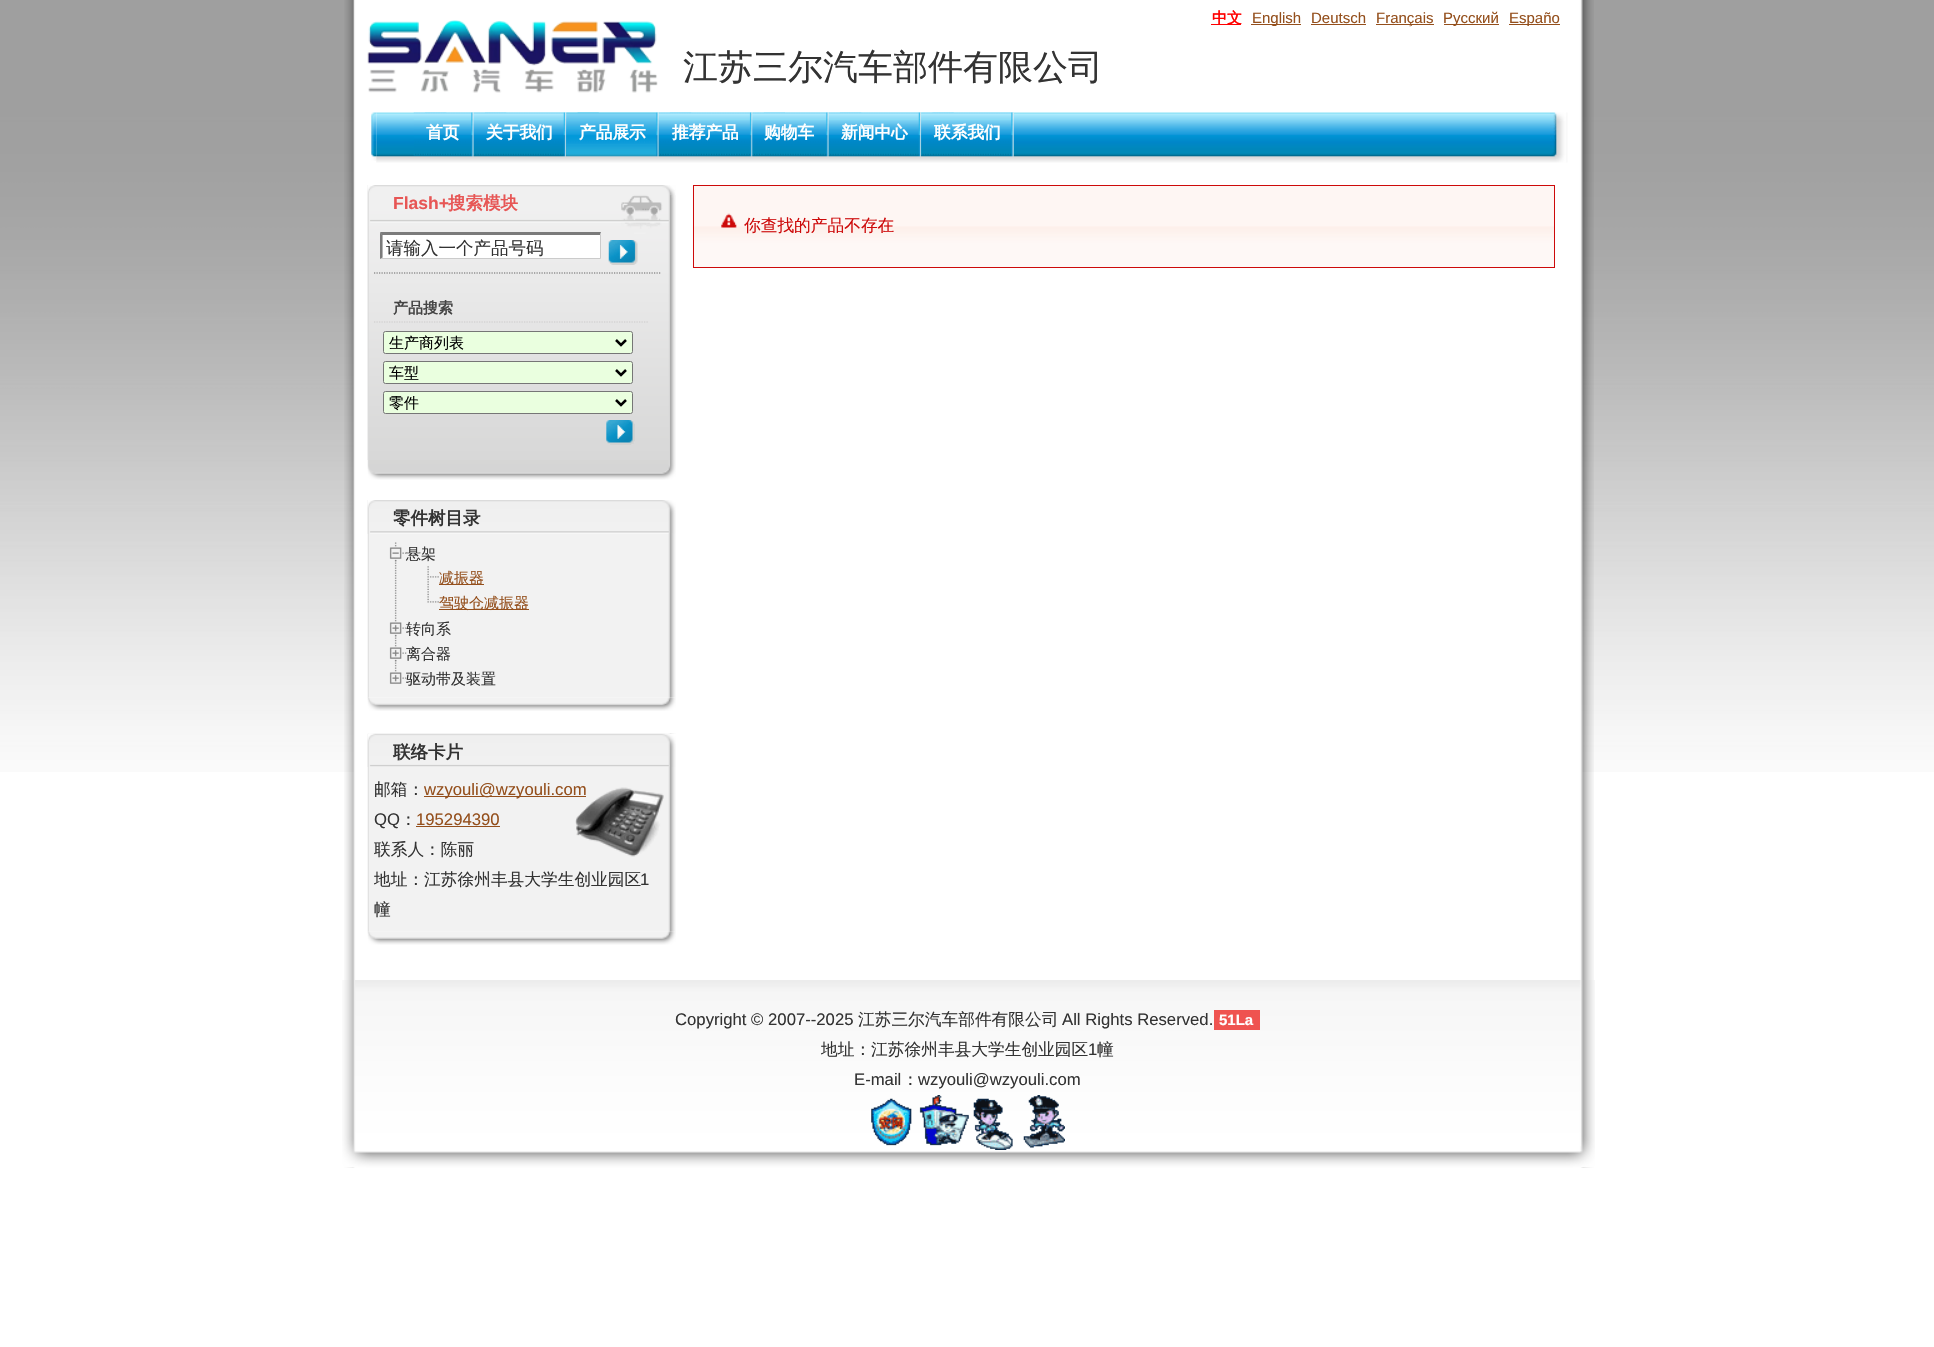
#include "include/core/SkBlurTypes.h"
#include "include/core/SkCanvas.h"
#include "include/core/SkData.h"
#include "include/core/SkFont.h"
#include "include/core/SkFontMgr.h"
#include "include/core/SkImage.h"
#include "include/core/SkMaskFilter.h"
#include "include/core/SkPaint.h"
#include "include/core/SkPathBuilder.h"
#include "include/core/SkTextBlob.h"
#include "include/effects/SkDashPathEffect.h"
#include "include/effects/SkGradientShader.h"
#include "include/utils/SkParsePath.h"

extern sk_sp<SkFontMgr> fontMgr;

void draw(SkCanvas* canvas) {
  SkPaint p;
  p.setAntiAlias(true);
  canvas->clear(SK_ColorWHITE);
  canvas->drawImageRect(SkImages::DeferredFromEncodedData(SkData::MakeFromFileName("images/1.png")), SkRect::MakeLTRB(0, 0, 1934, 772), SkSamplingOptions());
  canvas->drawImageRect(SkImages::DeferredFromEncodedData(SkData::MakeFromFileName("images/2.png")), SkRect::MakeLTRB(344, 0, 1594, 1168), SkSamplingOptions());
  canvas->drawImageRect(SkImages::DeferredFromEncodedData(SkData::MakeFromFileName("images/3.png")), SkRect::MakeLTRB(367, 20, 658, 93), SkSamplingOptions());
  p.setColor(SkColorSetRGB(255, 0, 0));
  canvas->drawRect(SkRect::MakeLTRB(1211, 24, 1241, 25), p);
  p.setColor(SkColorSetRGB(148, 79, 28));
  canvas->drawRect(SkRect::MakeLTRB(1251, 24, 1301, 25), p);
  canvas->drawRect(SkRect::MakeLTRB(1311, 24, 1366, 25), p);
  canvas->drawRect(SkRect::MakeLTRB(1376, 24, 1434, 25), p);
  canvas->drawRect(SkRect::MakeLTRB(1444, 24, 1499, 25), p);
  canvas->drawRect(SkRect::MakeLTRB(1509, 24, 1560, 25), p);
  canvas->drawImageRect(SkImages::DeferredFromEncodedData(SkData::MakeFromFileName("images/4.png")), SkRect::MakeLTRB(371, 112, 377, 161), SkSamplingOptions());
  canvas->drawImageRect(SkImages::DeferredFromEncodedData(SkData::MakeFromFileName("images/5.png")), SkRect::MakeLTRB(1550, 112, 1568, 163), SkSamplingOptions());
  canvas->drawImageRect(SkImages::DeferredFromEncodedData(SkData::MakeFromFileName("images/6.png")), SkRect::MakeLTRB(376, 112, 1550, 163), SkSamplingOptions());
  canvas->drawImageRect(SkImages::DeferredFromEncodedData(SkData::MakeFromFileName("images/7.png")), SkRect::MakeLTRB(413, 112, 447, 156), SkSamplingOptions());
  canvas->drawImageRect(SkImages::DeferredFromEncodedData(SkData::MakeFromFileName("images/8.png")), SkRect::MakeLTRB(425, 112, 474, 157), SkSamplingOptions());
  canvas->drawImageRect(SkImages::DeferredFromEncodedData(SkData::MakeFromFileName("images/9.png")), SkRect::MakeLTRB(473, 112, 507, 157), SkSamplingOptions());
  canvas->drawImageRect(SkImages::DeferredFromEncodedData(SkData::MakeFromFileName("images/10.png")), SkRect::MakeLTRB(485, 112, 567, 157), SkSamplingOptions());
  canvas->drawImageRect(SkImages::DeferredFromEncodedData(SkData::MakeFromFileName("images/11.png")), SkRect::MakeLTRB(566, 112, 599, 157), SkSamplingOptions());
  canvas->drawImageRect(SkImages::DeferredFromEncodedData(SkData::MakeFromFileName("images/12.png")), SkRect::MakeLTRB(577, 112, 659, 157), SkSamplingOptions());
  canvas->drawImageRect(SkImages::DeferredFromEncodedData(SkData::MakeFromFileName("images/9.png")), SkRect::MakeLTRB(658, 112, 692, 157), SkSamplingOptions());
  canvas->drawImageRect(SkImages::DeferredFromEncodedData(SkData::MakeFromFileName("images/13.png")), SkRect::MakeLTRB(670, 112, 753, 157), SkSamplingOptions());
  canvas->drawImageRect(SkImages::DeferredFromEncodedData(SkData::MakeFromFileName("images/14.png")), SkRect::MakeLTRB(752, 112, 785, 157), SkSamplingOptions());
  canvas->drawImageRect(SkImages::DeferredFromEncodedData(SkData::MakeFromFileName("images/15.png")), SkRect::MakeLTRB(764, 112, 829, 157), SkSamplingOptions());
  canvas->drawImageRect(SkImages::DeferredFromEncodedData(SkData::MakeFromFileName("images/16.png")), SkRect::MakeLTRB(828, 112, 862, 157), SkSamplingOptions());
  canvas->drawImageRect(SkImages::DeferredFromEncodedData(SkData::MakeFromFileName("images/10.png")), SkRect::MakeLTRB(840, 112, 922, 157), SkSamplingOptions());
  canvas->drawImageRect(SkImages::DeferredFromEncodedData(SkData::MakeFromFileName("images/17.png")), SkRect::MakeLTRB(921, 112, 954, 157), SkSamplingOptions());
  canvas->drawImageRect(SkImages::DeferredFromEncodedData(SkData::MakeFromFileName("images/18.png")), SkRect::MakeLTRB(932, 112, 1014, 157), SkSamplingOptions());
  canvas->drawImageRect(SkImages::DeferredFromEncodedData(SkData::MakeFromFileName("images/19.png")), SkRect::MakeLTRB(367, 460, 676, 480), SkSamplingOptions());
  canvas->drawImageRect(SkImages::DeferredFromEncodedData(SkData::MakeFromFileName("images/20.png")), SkRect::MakeLTRB(367, 185, 368, 460), SkSamplingOptions());
  canvas->drawImageRect(SkImages::DeferredFromEncodedData(SkData::MakeFromFileName("images/21.png")), SkRect::MakeLTRB(367, 185, 676, 460), SkSamplingOptions());
  p.setColor(SK_ColorWHITE);
  canvas->drawRect(SkRect::MakeLTRB(383, 235, 600, 258), p);
  p.setColor(SkColorSetRGB(123, 123, 123));
  canvas->drawPath(SkPathBuilder().moveTo(380, 232).lineTo(601, 232).lineTo(600, 235).lineTo(382, 235).close().detach(), p);
  p.setColor(SkColorSetRGB(203, 203, 203));
  canvas->drawPath(SkPathBuilder().moveTo(601, 232.5f).lineTo(601, 259).lineTo(600, 257.5f).lineTo(600, 235).close().detach(), p);
  canvas->drawPath(SkPathBuilder().moveTo(601, 259).lineTo(380, 259).lineTo(382, 258).lineTo(600, 258).close().detach(), p);
  p.setColor(SkColorSetRGB(123, 123, 123));
  canvas->drawPath(SkPathBuilder().moveTo(380, 259).lineTo(380, 232.5f).lineTo(382.5f, 235).lineTo(382.5f, 257.5f).close().detach(), p);
  canvas->drawImageRect(SkImages::DeferredFromEncodedData(SkData::MakeFromFileName("images/22.png")), SkRect::MakeLTRB(608, 240, 638, 265), SkSamplingOptions());
  p.setStyle(SkPaint::kStroke_Style);
  p.setStrokeWidth(1.2f);
  p.setColor(SkColorSetRGB(102, 102, 102));
  p.setPathEffect(SkDashPathEffect::Make({{1.25f, 1.25f}}, 0));
  canvas->drawPath(SkPathBuilder().moveTo(374, 273).lineTo(661, 273).detach(), p);
  p.setPathEffect(nullptr);
  p.setColor(SkColorSetRGB(204, 204, 204));
  p.setPathEffect(SkDashPathEffect::Make({{1.25f, 1.25f}}, 0));
  canvas->drawPath(SkPathBuilder().moveTo(374, 322).lineTo(649, 322).detach(), p);
  p.setPathEffect(nullptr);
  p.setStyle(SkPaint::kFill_Style);
  p.setColor(SkColorSetRGB(234, 255, 223));
  canvas->drawRoundRect(SkRect::MakeLTRB(383.5f, 331.5f, 632.5f, 353.5f), 2, 2, p);
  p.setStyle(SkPaint::kStroke_Style);
  p.setStrokeWidth(1);
  p.setColor(SkColorSetRGB(118, 118, 118));
  canvas->drawRoundRect(SkRect::MakeLTRB(383.5f, 331.5f, 632.5f, 353.5f), 2, 2, p);
  p.setStrokeWidth(2.5f);
  p.setColor(SK_ColorBLACK);
  canvas->drawPath(SkPathBuilder().moveTo(616, 340).lineTo(621, 345).lineTo(626, 340).detach(), p);
  p.setStyle(SkPaint::kFill_Style);
  p.setColor(SkColorSetRGB(234, 255, 223));
  canvas->drawRoundRect(SkRect::MakeLTRB(383.5f, 361.5f, 632.5f, 383.5f), 2, 2, p);
  p.setStyle(SkPaint::kStroke_Style);
  p.setStrokeWidth(1);
  p.setColor(SkColorSetRGB(118, 118, 118));
  canvas->drawRoundRect(SkRect::MakeLTRB(383.5f, 361.5f, 632.5f, 383.5f), 2, 2, p);
  p.setStrokeWidth(2.5f);
  p.setColor(SK_ColorBLACK);
  canvas->drawPath(SkPathBuilder().moveTo(616, 370).lineTo(621, 375).lineTo(626, 370).detach(), p);
  p.setStyle(SkPaint::kFill_Style);
  p.setColor(SkColorSetRGB(234, 255, 223));
  canvas->drawRoundRect(SkRect::MakeLTRB(383.5f, 391.5f, 632.5f, 413.5f), 2, 2, p);
  p.setStyle(SkPaint::kStroke_Style);
  p.setStrokeWidth(1);
  p.setColor(SkColorSetRGB(118, 118, 118));
  canvas->drawRoundRect(SkRect::MakeLTRB(383.5f, 391.5f, 632.5f, 413.5f), 2, 2, p);
  p.setStrokeWidth(2.5f);
  p.setColor(SK_ColorBLACK);
  canvas->drawPath(SkPathBuilder().moveTo(616, 400).lineTo(621, 405).lineTo(626, 400).detach(), p);
  canvas->drawImageRect(SkImages::DeferredFromEncodedData(SkData::MakeFromFileName("images/23.png")), SkRect::MakeLTRB(606, 420, 635, 445), SkSamplingOptions());
  canvas->drawImageRect(SkImages::DeferredFromEncodedData(SkData::MakeFromFileName("images/24.png")), SkRect::MakeLTRB(367, 697, 676, 711), SkSamplingOptions());
  canvas->drawImageRect(SkImages::DeferredFromEncodedData(SkData::MakeFromFileName("images/25.png")), SkRect::MakeLTRB(367, 500, 676, 698), SkSamplingOptions());
  canvas->drawImageRect(SkImages::DeferredFromEncodedData(SkData::MakeFromFileName("images/26.png")), SkRect::MakeLTRB(367, 500, 676, 534), SkSamplingOptions());
  canvas->drawImageRect(SkImages::DeferredFromEncodedData(SkData::MakeFromFileName("images/27.png")), SkRect::MakeLTRB(394, 542, 397, 617), SkSamplingOptions());
  canvas->drawImageRect(SkImages::DeferredFromEncodedData(SkData::MakeFromFileName("images/28.png")), SkRect::MakeLTRB(389, 547, 407, 562), SkSamplingOptions());
  canvas->drawImageRect(SkImages::DeferredFromEncodedData(SkData::MakeFromFileName("images/29.png")), SkRect::MakeLTRB(427, 566, 439, 590), SkSamplingOptions());
  p.setStyle(SkPaint::kFill_Style);
  p.setColor(SkColorSetRGB(148, 79, 28));
  canvas->drawRect(SkRect::MakeLTRB(439, 584, 484, 585), p);
  canvas->drawImageRect(SkImages::DeferredFromEncodedData(SkData::MakeFromFileName("images/30.png")), SkRect::MakeLTRB(427, 591, 439, 603), SkSamplingOptions());
  canvas->drawRect(SkRect::MakeLTRB(439, 609, 529, 610), p);
  canvas->drawImageRect(SkImages::DeferredFromEncodedData(SkData::MakeFromFileName("images/31.png")), SkRect::MakeLTRB(394, 617, 397, 642), SkSamplingOptions());
  canvas->drawImageRect(SkImages::DeferredFromEncodedData(SkData::MakeFromFileName("images/32.png")), SkRect::MakeLTRB(389, 622, 407, 637), SkSamplingOptions());
  canvas->drawImageRect(SkImages::DeferredFromEncodedData(SkData::MakeFromFileName("images/31.png")), SkRect::MakeLTRB(394, 642, 397, 667), SkSamplingOptions());
  canvas->drawImageRect(SkImages::DeferredFromEncodedData(SkData::MakeFromFileName("images/32.png")), SkRect::MakeLTRB(389, 647, 407, 662), SkSamplingOptions());
  canvas->drawImageRect(SkImages::DeferredFromEncodedData(SkData::MakeFromFileName("images/33.png")), SkRect::MakeLTRB(389, 667, 407, 684), SkSamplingOptions());
  canvas->drawImageRect(SkImages::DeferredFromEncodedData(SkData::MakeFromFileName("images/34.png")), SkRect::MakeLTRB(367, 931, 676, 945), SkSamplingOptions());
  canvas->drawImageRect(SkImages::DeferredFromEncodedData(SkData::MakeFromFileName("images/35.png")), SkRect::MakeLTRB(367, 733, 676, 932), SkSamplingOptions());
  canvas->drawImageRect(SkImages::DeferredFromEncodedData(SkData::MakeFromFileName("images/36.png")), SkRect::MakeLTRB(367, 733, 676, 767), SkSamplingOptions());
  canvas->drawImageRect(SkImages::DeferredFromEncodedData(SkData::MakeFromFileName("images/37.png")), SkRect::MakeLTRB(575, 787, 664, 857), SkSamplingOptions());
  canvas->drawRect(SkRect::MakeLTRB(424, 796, 586, 797), p);
  canvas->drawRect(SkRect::MakeLTRB(416, 826, 500, 827), p);
  canvas->drawImageRect(SkImages::DeferredFromEncodedData(SkData::MakeFromFileName("images/38.png")), SkRect::MakeLTRB(692, 185, 1554, 267), SkSamplingOptions());
  p.setStyle(SkPaint::kStroke_Style);
  p.setStrokeWidth(1);
  p.setColor(SkColorSetRGB(205, 10, 10));
  canvas->drawRect(SkRect::MakeLTRB(693.5f, 185.5f, 1554.5f, 267.5f), p);
  canvas->drawImageRect(SkImages::DeferredFromEncodedData(SkData::MakeFromFileName("images/39.png")), SkRect::MakeLTRB(721, 213, 737, 228), SkSamplingOptions());
  canvas->drawImageRect(SkImages::DeferredFromEncodedData(SkData::MakeFromFileName("images/40.png")), SkRect::MakeLTRB(342, 980, 1595, 1168), SkSamplingOptions());
  p.setStyle(SkPaint::kFill_Style);
  p.setColor(SkColorSetRGB(239, 83, 80));
  canvas->drawRect(SkRect::MakeLTRB(1214, 1010, 1260, 1030), p);
  canvas->drawImageRect(SkImages::DeferredFromEncodedData(SkData::MakeFromFileName("images/41.png")), SkRect::MakeLTRB(871, 1095, 1065, 1150), SkSamplingOptions());
  SkFont font1(fontMgr->matchFamilyStyle("WenQuanYi Zen Hei", SkFontStyle(500, SkFontStyle::kNormal_Width, SkFontStyle::kUpright_Slant)), 35);
  font1.setSubpixel(true);
  p.setColor(SkColorSetRGB(51, 51, 51));
  canvas->drawString("江苏三尔汽车部件有限公司", 683, 79, font1, p);
  SkFont font2(fontMgr->matchFamilyStyle("WenQuanYi Zen Hei", SkFontStyle::Bold()), 15);
  font2.setSubpixel(true);
  p.setColor(SkColorSetRGB(255, 0, 0));
  canvas->drawString("中文", 1212, 23, font2, p);
  SkFont font3(fontMgr->matchFamilyStyle("Liberation Sans", SkFontStyle::Normal()), 15);
  font3.setSubpixel(true);
  p.setColor(SkColorSetRGB(148, 79, 28));
  canvas->drawString("English", 1252, 23, font3, p);
  canvas->drawString("Deutsch", 1311, 23, font3, p);
  canvas->drawString("Français", 1376, 23, font3, p);
  canvas->drawString("Русский", 1443, 23, font3, p);
  canvas->drawString("Españo", 1509, 23, font3, p);
  SkFont font4(fontMgr->matchFamilyStyle("WenQuanYi Zen Hei", SkFontStyle::Bold()), 16.7f);
  font4.setSubpixel(true);
  p.setColor(SK_ColorWHITE);
  canvas->drawString("首页", 426, 138, font4, p);
  canvas->drawString("关于我们", 486, 138, font4, p);
  canvas->drawString("产品展示", 579, 138, font4, p);
  canvas->drawString("推荐产品", 672, 138, font4, p);
  canvas->drawString("购物车", 764, 138, font4, p);
  canvas->drawString("新闻中心", 841, 138, font4, p);
  canvas->drawString("联系我们", 934, 138, font4, p);
  SkFont font5(fontMgr->matchFamilyStyle("Liberation Sans", SkFontStyle::Bold()), 17.5f);
  font5.setSubpixel(true);
  p.setColor(SkColorSetRGB(231, 86, 85));
  canvas->drawString("Flash+", 393, 209, font5, p);
  SkFont font6(fontMgr->matchFamilyStyle("WenQuanYi Zen Hei", SkFontStyle::Bold()), 17.5f);
  font6.setSubpixel(true);
  canvas->drawString("搜索模块", 448, 209, font6, p);
  SkFont font7(fontMgr->matchFamilyStyle("WenQuanYi Zen Hei", SkFontStyle(500, SkFontStyle::kNormal_Width, SkFontStyle::kUpright_Slant)), 17.5f);
  font7.setSubpixel(true);
  p.setColor(SkColorSetRGB(51, 51, 51));
  canvas->drawString("请输入一个产品号码", 386, 254, font7, p);
  p.setColor(SkColorSetRGB(68, 68, 68));
  canvas->drawString("产品搜索", 393, 313, font2, p);
  SkFont font8(fontMgr->matchFamilyStyle("WenQuanYi Zen Hei", SkFontStyle(500, SkFontStyle::kNormal_Width, SkFontStyle::kUpright_Slant)), 15);
  font8.setSubpixel(true);
  p.setColor(SK_ColorBLACK);
  canvas->drawString("生产商列表", 389, 348, font8, p);
  canvas->drawString("车型", 389, 378, font8, p);
  canvas->drawString("零件", 389, 408, font8, p);
  p.setColor(SkColorSetRGB(51, 51, 51));
  canvas->drawString("零件树目录", 393, 524, font6, p);
  canvas->drawString("悬架", 406, 559, font8, p);
  p.setColor(SkColorSetRGB(148, 79, 28));
  canvas->drawString("减振器", 439, 583, font8, p);
  canvas->drawString("驾驶仓减振器", 439, 608, font8, p);
  p.setColor(SkColorSetRGB(51, 51, 51));
  canvas->drawString("转向系", 406, 634, font8, p);
  canvas->drawString("离合器", 406, 659, font8, p);
  canvas->drawString("驱动带及装置", 406, 684, font8, p);
  canvas->drawString("联络卡片", 393, 758, font6, p);
  SkFont font9(fontMgr->matchFamilyStyle("WenQuanYi Zen Hei", SkFontStyle(500, SkFontStyle::kNormal_Width, SkFontStyle::kUpright_Slant)), 16.7f);
  font9.setSubpixel(true);
  canvas->drawString("邮箱：", 374, 795, font9, p);
  SkFont font10(fontMgr->matchFamilyStyle("Liberation Sans", SkFontStyle::Normal()), 16.7f);
  font10.setSubpixel(true);
  p.setColor(SkColorSetRGB(148, 79, 28));
  canvas->drawString("wzyouli@wzyouli.com", 424, 795, font10, p);
  p.setColor(SkColorSetRGB(51, 51, 51));
  canvas->drawString("QQ", 374, 825, font10, p);
  canvas->drawString("：", 400, 825, font9, p);
  p.setColor(SkColorSetRGB(148, 79, 28));
  canvas->drawString("195294390", 416, 825, font10, p);
  p.setColor(SkColorSetRGB(51, 51, 51));
  canvas->drawString("联系人：陈丽", 374, 855, font9, p);
  canvas->drawString("地址：江苏徐州丰县大学生创业园区", 374, 885, font9, p);
  canvas->drawString("1", 640, 885, font10, p);
  canvas->drawString("幢", 374, 915, font9, p);
  p.setColor(SkColorSetRGB(205, 10, 10));
  canvas->drawString("你查找的产品不存在", 744, 231, font9, p);
  p.setColor(SkColorSetRGB(51, 51, 51));
  canvas->drawString("Copyright © 2007--2025", 675, 1025, font10, p);
  canvas->drawString("江苏三尔汽车部件有限公司", 858, 1025, font9, p);
  canvas->drawString("All Rights Reserved.", 1062, 1025, font10, p);
  SkFont font11(fontMgr->matchFamilyStyle("Liberation Sans", SkFontStyle::Bold()), 15);
  font11.setSubpixel(true);
  p.setColor(SK_ColorWHITE);
  canvas->drawString("51La", 1219, 1025, font11, p);
  p.setColor(SkColorSetRGB(51, 51, 51));
  canvas->drawString("地址：江苏徐州丰县大学生创业园区", 821, 1055, font9, p);
  canvas->drawString("1", 1088, 1055, font10, p);
  canvas->drawString("幢", 1097, 1055, font9, p);
  canvas->drawString("E-mail", 854, 1085, font10, p);
  canvas->drawString("：", 902, 1085, font9, p);
  canvas->drawString("wzyouli@wzyouli.com", 918, 1085, font10, p);
}
